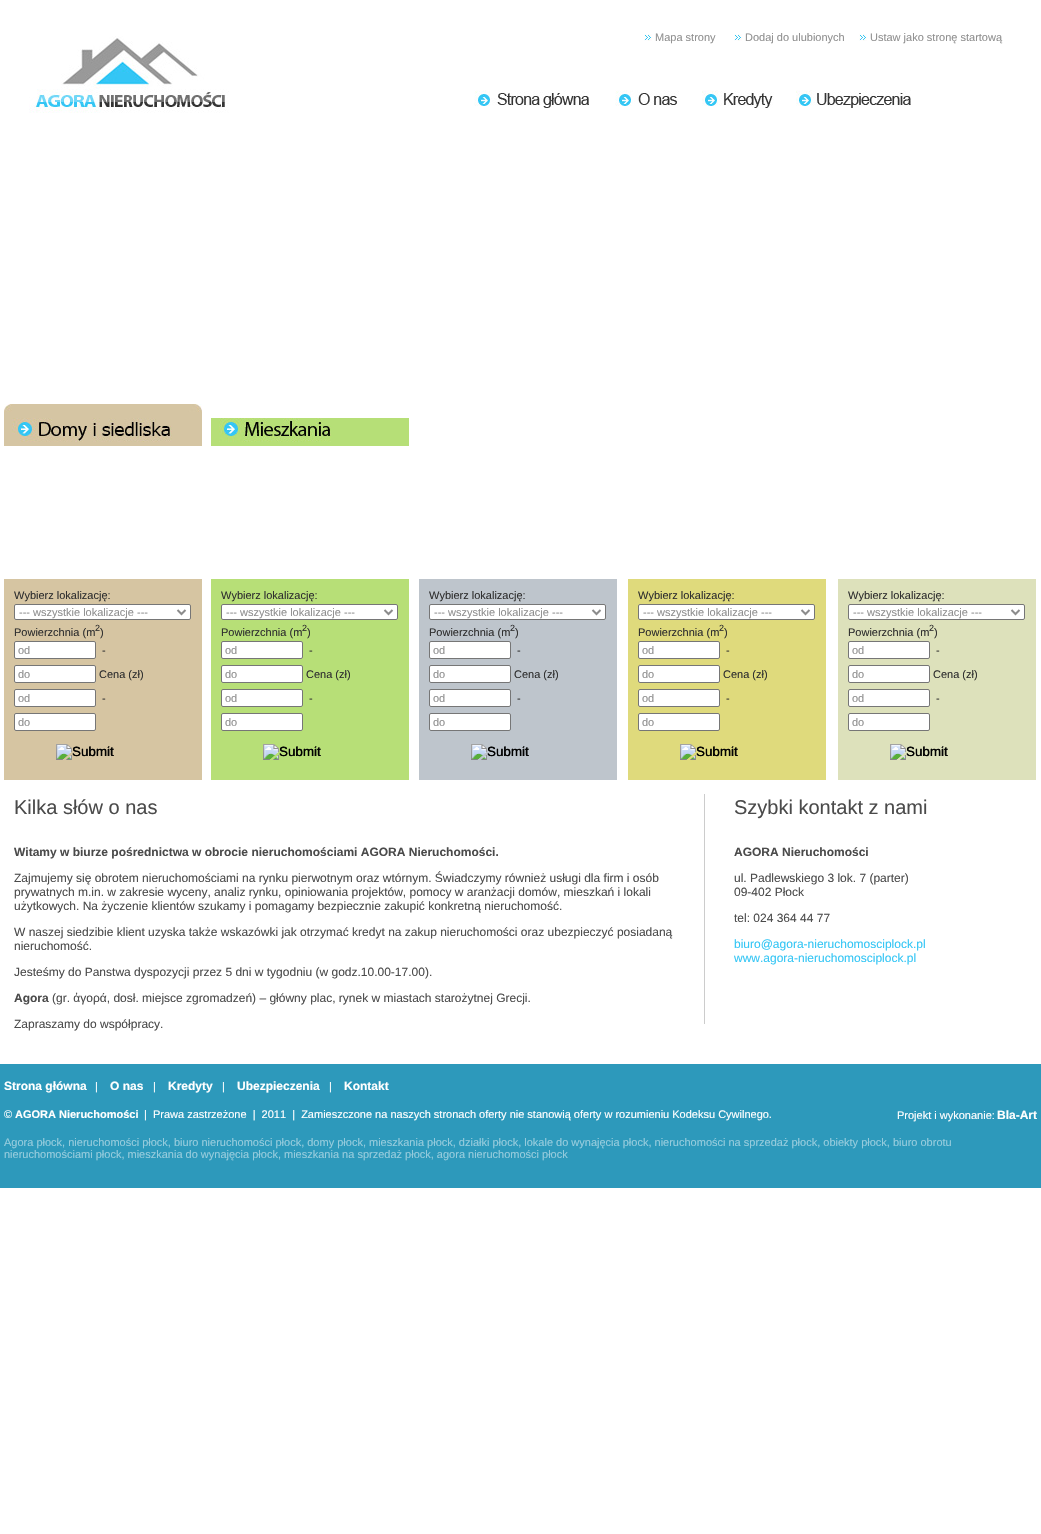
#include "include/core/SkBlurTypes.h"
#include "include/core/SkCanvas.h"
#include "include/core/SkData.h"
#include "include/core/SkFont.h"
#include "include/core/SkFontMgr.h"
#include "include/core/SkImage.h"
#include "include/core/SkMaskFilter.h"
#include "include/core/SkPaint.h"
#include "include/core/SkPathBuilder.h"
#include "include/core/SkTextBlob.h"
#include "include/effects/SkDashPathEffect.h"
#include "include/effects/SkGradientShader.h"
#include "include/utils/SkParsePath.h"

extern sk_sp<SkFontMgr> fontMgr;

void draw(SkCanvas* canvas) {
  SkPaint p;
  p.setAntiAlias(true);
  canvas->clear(SK_ColorWHITE);
  canvas->drawImageRect(SkImages::DeferredFromEncodedData(SkData::MakeFromFileName("images/1.png")), SkRect::MakeLTRB(29, 36, 229, 113), SkSamplingOptions());
  canvas->drawImageRect(SkImages::DeferredFromEncodedData(SkData::MakeFromFileName("images/2.png")), SkRect::MakeLTRB(644, 34, 652, 41), SkSamplingOptions());
  canvas->drawImageRect(SkImages::DeferredFromEncodedData(SkData::MakeFromFileName("images/2.png")), SkRect::MakeLTRB(734, 34, 742, 41), SkSamplingOptions());
  canvas->drawImageRect(SkImages::DeferredFromEncodedData(SkData::MakeFromFileName("images/2.png")), SkRect::MakeLTRB(859, 34, 867, 41), SkSamplingOptions());
  canvas->drawImageRect(SkImages::DeferredFromEncodedData(SkData::MakeFromFileName("images/3.png")), SkRect::MakeLTRB(474, 90, 589, 108), SkSamplingOptions());
  canvas->drawImageRect(SkImages::DeferredFromEncodedData(SkData::MakeFromFileName("images/4.png")), SkRect::MakeLTRB(615, 90, 679, 106), SkSamplingOptions());
  canvas->drawImageRect(SkImages::DeferredFromEncodedData(SkData::MakeFromFileName("images/5.png")), SkRect::MakeLTRB(702, 90, 774, 108), SkSamplingOptions());
  canvas->drawImageRect(SkImages::DeferredFromEncodedData(SkData::MakeFromFileName("images/6.png")), SkRect::MakeLTRB(796, 90, 911, 108), SkSamplingOptions());
  canvas->drawImageRect(SkImages::DeferredFromEncodedData(SkData::MakeFromFileName("images/7.png")), SkRect::MakeLTRB(4, 404, 202, 418), SkSamplingOptions());
  canvas->drawImageRect(SkImages::DeferredFromEncodedData(SkData::MakeFromFileName("images/8.png")), SkRect::MakeLTRB(4, 418, 202, 446), SkSamplingOptions());
  p.setColor(SkColorSetRGB(214, 197, 162));
  canvas->drawRect(SkRect::MakeLTRB(4, 579, 202, 780), p);
  p.setColor(SK_ColorWHITE);
  canvas->drawRoundRect(SkRect::MakeLTRB(14.5f, 604.5f, 190.5f, 619.5f), 1.5f, 1.5f, p);
  p.setStyle(SkPaint::kStroke_Style);
  p.setStrokeWidth(1);
  p.setColor(SkColorSetRGB(118, 118, 118));
  canvas->drawRoundRect(SkRect::MakeLTRB(14.5f, 604.5f, 190.5f, 619.5f), 1.5f, 1.5f, p);
  p.setStrokeWidth(2);
  p.setColor(SkColorSetRGB(140, 140, 140));
  canvas->drawPath(SkPathBuilder().moveTo(177.5f, 610).lineTo(181.5f, 614).lineTo(185.5f, 610).detach(), p);
  p.setStyle(SkPaint::kFill_Style);
  p.setColor(SK_ColorWHITE);
  canvas->drawRoundRect(SkRect::MakeLTRB(14.5f, 641.5f, 95.5f, 658.5f), 1.5f, 1.5f, p);
  p.setStyle(SkPaint::kStroke_Style);
  p.setStrokeWidth(1);
  p.setColor(SkColorSetRGB(118, 118, 118));
  canvas->drawRoundRect(SkRect::MakeLTRB(14.5f, 641.5f, 95.5f, 658.5f), 1.5f, 1.5f, p);
  p.setStyle(SkPaint::kFill_Style);
  p.setColor(SK_ColorWHITE);
  canvas->drawRoundRect(SkRect::MakeLTRB(14.5f, 665.5f, 95.5f, 682.5f), 1.5f, 1.5f, p);
  p.setStyle(SkPaint::kStroke_Style);
  p.setColor(SkColorSetRGB(118, 118, 118));
  canvas->drawRoundRect(SkRect::MakeLTRB(14.5f, 665.5f, 95.5f, 682.5f), 1.5f, 1.5f, p);
  p.setStyle(SkPaint::kFill_Style);
  p.setColor(SK_ColorWHITE);
  canvas->drawRoundRect(SkRect::MakeLTRB(14.5f, 689.5f, 95.5f, 706.5f), 1.5f, 1.5f, p);
  p.setStyle(SkPaint::kStroke_Style);
  p.setColor(SkColorSetRGB(118, 118, 118));
  canvas->drawRoundRect(SkRect::MakeLTRB(14.5f, 689.5f, 95.5f, 706.5f), 1.5f, 1.5f, p);
  p.setStyle(SkPaint::kFill_Style);
  p.setColor(SK_ColorWHITE);
  canvas->drawRoundRect(SkRect::MakeLTRB(14.5f, 713.5f, 95.5f, 730.5f), 1.5f, 1.5f, p);
  p.setStyle(SkPaint::kStroke_Style);
  p.setColor(SkColorSetRGB(118, 118, 118));
  canvas->drawRoundRect(SkRect::MakeLTRB(14.5f, 713.5f, 95.5f, 730.5f), 1.5f, 1.5f, p);
  canvas->drawImageRect(SkImages::DeferredFromEncodedData(SkData::MakeFromFileName("images/9.png")), SkRect::MakeLTRB(56, 744, 113, 760), SkSamplingOptions());
  canvas->drawImageRect(SkImages::DeferredFromEncodedData(SkData::MakeFromFileName("images/10.png")), SkRect::MakeLTRB(211, 418, 409, 446), SkSamplingOptions());
  p.setStyle(SkPaint::kFill_Style);
  p.setColor(SkColorSetRGB(183, 223, 119));
  canvas->drawRect(SkRect::MakeLTRB(211, 579, 409, 780), p);
  p.setColor(SK_ColorWHITE);
  canvas->drawRoundRect(SkRect::MakeLTRB(221.5f, 604.5f, 397.5f, 619.5f), 1.5f, 1.5f, p);
  p.setStyle(SkPaint::kStroke_Style);
  p.setColor(SkColorSetRGB(118, 118, 118));
  canvas->drawRoundRect(SkRect::MakeLTRB(221.5f, 604.5f, 397.5f, 619.5f), 1.5f, 1.5f, p);
  p.setStrokeWidth(2);
  p.setColor(SkColorSetRGB(140, 140, 140));
  canvas->drawPath(SkPathBuilder().moveTo(384.5f, 610).lineTo(388.5f, 614).lineTo(392.5f, 610).detach(), p);
  p.setStyle(SkPaint::kFill_Style);
  p.setColor(SK_ColorWHITE);
  canvas->drawRoundRect(SkRect::MakeLTRB(221.5f, 641.5f, 302.5f, 658.5f), 1.5f, 1.5f, p);
  p.setStyle(SkPaint::kStroke_Style);
  p.setStrokeWidth(1);
  p.setColor(SkColorSetRGB(118, 118, 118));
  canvas->drawRoundRect(SkRect::MakeLTRB(221.5f, 641.5f, 302.5f, 658.5f), 1.5f, 1.5f, p);
  p.setStyle(SkPaint::kFill_Style);
  p.setColor(SK_ColorWHITE);
  canvas->drawRoundRect(SkRect::MakeLTRB(221.5f, 665.5f, 302.5f, 682.5f), 1.5f, 1.5f, p);
  p.setStyle(SkPaint::kStroke_Style);
  p.setColor(SkColorSetRGB(118, 118, 118));
  canvas->drawRoundRect(SkRect::MakeLTRB(221.5f, 665.5f, 302.5f, 682.5f), 1.5f, 1.5f, p);
  p.setStyle(SkPaint::kFill_Style);
  p.setColor(SK_ColorWHITE);
  canvas->drawRoundRect(SkRect::MakeLTRB(221.5f, 689.5f, 302.5f, 706.5f), 1.5f, 1.5f, p);
  p.setStyle(SkPaint::kStroke_Style);
  p.setColor(SkColorSetRGB(118, 118, 118));
  canvas->drawRoundRect(SkRect::MakeLTRB(221.5f, 689.5f, 302.5f, 706.5f), 1.5f, 1.5f, p);
  p.setStyle(SkPaint::kFill_Style);
  p.setColor(SK_ColorWHITE);
  canvas->drawRoundRect(SkRect::MakeLTRB(221.5f, 713.5f, 302.5f, 730.5f), 1.5f, 1.5f, p);
  p.setStyle(SkPaint::kStroke_Style);
  p.setColor(SkColorSetRGB(118, 118, 118));
  canvas->drawRoundRect(SkRect::MakeLTRB(221.5f, 713.5f, 302.5f, 730.5f), 1.5f, 1.5f, p);
  canvas->drawImageRect(SkImages::DeferredFromEncodedData(SkData::MakeFromFileName("images/11.png")), SkRect::MakeLTRB(263, 744, 320, 760), SkSamplingOptions());
  p.setStyle(SkPaint::kFill_Style);
  p.setColor(SkColorSetRGB(190, 197, 204));
  canvas->drawRect(SkRect::MakeLTRB(419, 579, 617, 780), p);
  p.setColor(SK_ColorWHITE);
  canvas->drawRoundRect(SkRect::MakeLTRB(429.5f, 604.5f, 605.5f, 619.5f), 1.5f, 1.5f, p);
  p.setStyle(SkPaint::kStroke_Style);
  p.setColor(SkColorSetRGB(118, 118, 118));
  canvas->drawRoundRect(SkRect::MakeLTRB(429.5f, 604.5f, 605.5f, 619.5f), 1.5f, 1.5f, p);
  p.setStrokeWidth(2);
  p.setColor(SkColorSetRGB(140, 140, 140));
  canvas->drawPath(SkPathBuilder().moveTo(592.5f, 610).lineTo(596.5f, 614).lineTo(600.5f, 610).detach(), p);
  p.setStyle(SkPaint::kFill_Style);
  p.setColor(SK_ColorWHITE);
  canvas->drawRoundRect(SkRect::MakeLTRB(429.5f, 641.5f, 510.5f, 658.5f), 1.5f, 1.5f, p);
  p.setStyle(SkPaint::kStroke_Style);
  p.setStrokeWidth(1);
  p.setColor(SkColorSetRGB(118, 118, 118));
  canvas->drawRoundRect(SkRect::MakeLTRB(429.5f, 641.5f, 510.5f, 658.5f), 1.5f, 1.5f, p);
  p.setStyle(SkPaint::kFill_Style);
  p.setColor(SK_ColorWHITE);
  canvas->drawRoundRect(SkRect::MakeLTRB(429.5f, 665.5f, 510.5f, 682.5f), 1.5f, 1.5f, p);
  p.setStyle(SkPaint::kStroke_Style);
  p.setColor(SkColorSetRGB(118, 118, 118));
  canvas->drawRoundRect(SkRect::MakeLTRB(429.5f, 665.5f, 510.5f, 682.5f), 1.5f, 1.5f, p);
  p.setStyle(SkPaint::kFill_Style);
  p.setColor(SK_ColorWHITE);
  canvas->drawRoundRect(SkRect::MakeLTRB(429.5f, 689.5f, 510.5f, 706.5f), 1.5f, 1.5f, p);
  p.setStyle(SkPaint::kStroke_Style);
  p.setColor(SkColorSetRGB(118, 118, 118));
  canvas->drawRoundRect(SkRect::MakeLTRB(429.5f, 689.5f, 510.5f, 706.5f), 1.5f, 1.5f, p);
  p.setStyle(SkPaint::kFill_Style);
  p.setColor(SK_ColorWHITE);
  canvas->drawRoundRect(SkRect::MakeLTRB(429.5f, 713.5f, 510.5f, 730.5f), 1.5f, 1.5f, p);
  p.setStyle(SkPaint::kStroke_Style);
  p.setColor(SkColorSetRGB(118, 118, 118));
  canvas->drawRoundRect(SkRect::MakeLTRB(429.5f, 713.5f, 510.5f, 730.5f), 1.5f, 1.5f, p);
  canvas->drawImageRect(SkImages::DeferredFromEncodedData(SkData::MakeFromFileName("images/12.png")), SkRect::MakeLTRB(471, 744, 528, 760), SkSamplingOptions());
  p.setStyle(SkPaint::kFill_Style);
  p.setColor(SkColorSetRGB(223, 218, 124));
  canvas->drawRect(SkRect::MakeLTRB(628, 579, 826, 780), p);
  p.setColor(SK_ColorWHITE);
  canvas->drawRoundRect(SkRect::MakeLTRB(638.5f, 604.5f, 814.5f, 619.5f), 1.5f, 1.5f, p);
  p.setStyle(SkPaint::kStroke_Style);
  p.setColor(SkColorSetRGB(118, 118, 118));
  canvas->drawRoundRect(SkRect::MakeLTRB(638.5f, 604.5f, 814.5f, 619.5f), 1.5f, 1.5f, p);
  p.setStrokeWidth(2);
  p.setColor(SkColorSetRGB(140, 140, 140));
  canvas->drawPath(SkPathBuilder().moveTo(801.5f, 610).lineTo(805.5f, 614).lineTo(809.5f, 610).detach(), p);
  p.setStyle(SkPaint::kFill_Style);
  p.setColor(SK_ColorWHITE);
  canvas->drawRoundRect(SkRect::MakeLTRB(638.5f, 641.5f, 719.5f, 658.5f), 1.5f, 1.5f, p);
  p.setStyle(SkPaint::kStroke_Style);
  p.setStrokeWidth(1);
  p.setColor(SkColorSetRGB(118, 118, 118));
  canvas->drawRoundRect(SkRect::MakeLTRB(638.5f, 641.5f, 719.5f, 658.5f), 1.5f, 1.5f, p);
  p.setStyle(SkPaint::kFill_Style);
  p.setColor(SK_ColorWHITE);
  canvas->drawRoundRect(SkRect::MakeLTRB(638.5f, 665.5f, 719.5f, 682.5f), 1.5f, 1.5f, p);
  p.setStyle(SkPaint::kStroke_Style);
  p.setColor(SkColorSetRGB(118, 118, 118));
  canvas->drawRoundRect(SkRect::MakeLTRB(638.5f, 665.5f, 719.5f, 682.5f), 1.5f, 1.5f, p);
  p.setStyle(SkPaint::kFill_Style);
  p.setColor(SK_ColorWHITE);
  canvas->drawRoundRect(SkRect::MakeLTRB(638.5f, 689.5f, 719.5f, 706.5f), 1.5f, 1.5f, p);
  p.setStyle(SkPaint::kStroke_Style);
  p.setColor(SkColorSetRGB(118, 118, 118));
  canvas->drawRoundRect(SkRect::MakeLTRB(638.5f, 689.5f, 719.5f, 706.5f), 1.5f, 1.5f, p);
  p.setStyle(SkPaint::kFill_Style);
  p.setColor(SK_ColorWHITE);
  canvas->drawRoundRect(SkRect::MakeLTRB(638.5f, 713.5f, 719.5f, 730.5f), 1.5f, 1.5f, p);
  p.setStyle(SkPaint::kStroke_Style);
  p.setColor(SkColorSetRGB(118, 118, 118));
  canvas->drawRoundRect(SkRect::MakeLTRB(638.5f, 713.5f, 719.5f, 730.5f), 1.5f, 1.5f, p);
  canvas->drawImageRect(SkImages::DeferredFromEncodedData(SkData::MakeFromFileName("images/13.png")), SkRect::MakeLTRB(680, 744, 737, 760), SkSamplingOptions());
  p.setStyle(SkPaint::kFill_Style);
  p.setColor(SkColorSetRGB(221, 225, 187));
  canvas->drawRect(SkRect::MakeLTRB(838, 579, 1036, 780), p);
  p.setColor(SK_ColorWHITE);
  canvas->drawRoundRect(SkRect::MakeLTRB(848.5f, 604.5f, 1024.5f, 619.5f), 1.5f, 1.5f, p);
  p.setStyle(SkPaint::kStroke_Style);
  p.setColor(SkColorSetRGB(118, 118, 118));
  canvas->drawRoundRect(SkRect::MakeLTRB(848.5f, 604.5f, 1024.5f, 619.5f), 1.5f, 1.5f, p);
  p.setStrokeWidth(2);
  p.setColor(SkColorSetRGB(140, 140, 140));
  canvas->drawPath(SkPathBuilder().moveTo(1011.5f, 610).lineTo(1015.5f, 614).lineTo(1019.5f, 610).detach(), p);
  p.setStyle(SkPaint::kFill_Style);
  p.setColor(SK_ColorWHITE);
  canvas->drawRoundRect(SkRect::MakeLTRB(848.5f, 641.5f, 929.5f, 658.5f), 1.5f, 1.5f, p);
  p.setStyle(SkPaint::kStroke_Style);
  p.setStrokeWidth(1);
  p.setColor(SkColorSetRGB(118, 118, 118));
  canvas->drawRoundRect(SkRect::MakeLTRB(848.5f, 641.5f, 929.5f, 658.5f), 1.5f, 1.5f, p);
  p.setStyle(SkPaint::kFill_Style);
  p.setColor(SK_ColorWHITE);
  canvas->drawRoundRect(SkRect::MakeLTRB(848.5f, 665.5f, 929.5f, 682.5f), 1.5f, 1.5f, p);
  p.setStyle(SkPaint::kStroke_Style);
  p.setColor(SkColorSetRGB(118, 118, 118));
  canvas->drawRoundRect(SkRect::MakeLTRB(848.5f, 665.5f, 929.5f, 682.5f), 1.5f, 1.5f, p);
  p.setStyle(SkPaint::kFill_Style);
  p.setColor(SK_ColorWHITE);
  canvas->drawRoundRect(SkRect::MakeLTRB(848.5f, 689.5f, 929.5f, 706.5f), 1.5f, 1.5f, p);
  p.setStyle(SkPaint::kStroke_Style);
  p.setColor(SkColorSetRGB(118, 118, 118));
  canvas->drawRoundRect(SkRect::MakeLTRB(848.5f, 689.5f, 929.5f, 706.5f), 1.5f, 1.5f, p);
  p.setStyle(SkPaint::kFill_Style);
  p.setColor(SK_ColorWHITE);
  canvas->drawRoundRect(SkRect::MakeLTRB(848.5f, 713.5f, 929.5f, 730.5f), 1.5f, 1.5f, p);
  p.setStyle(SkPaint::kStroke_Style);
  p.setColor(SkColorSetRGB(118, 118, 118));
  canvas->drawRoundRect(SkRect::MakeLTRB(848.5f, 713.5f, 929.5f, 730.5f), 1.5f, 1.5f, p);
  canvas->drawImageRect(SkImages::DeferredFromEncodedData(SkData::MakeFromFileName("images/14.png")), SkRect::MakeLTRB(890, 744, 947, 760), SkSamplingOptions());
  p.setStyle(SkPaint::kFill_Style);
  p.setColor(SkColorSetRGB(204, 204, 204));
  canvas->drawRect(SkRect::MakeLTRB(704, 794, 705, 1024), p);
  p.setColor(SkColorSetRGB(45, 153, 187));
  canvas->drawRect(SkRect::MakeLTRB(0, 1064, 1041, 1188), p);
  SkFont font1(fontMgr->matchFamilyStyle("Liberation Sans", SkFontStyle::Normal()), 11);
  font1.setSubpixel(true);
  p.setColor(SkColorSetRGB(144, 144, 144));
  canvas->drawString("Mapa strony", 655, 41, font1, p);
  canvas->drawString("Dodaj do ulubionych", 745, 41, font1, p);
  canvas->drawString("Ustaw jako stronę startową", 870, 41, font1, p);
  p.setColor(SkColorSetRGB(47, 47, 47));
  canvas->drawString("Wybierz lokalizację:", 14, 599, font1, p);
  p.setColor(SkColorSetRGB(144, 144, 144));
  canvas->drawString("--- wszystkie lokalizacje ---", 19, 616, font1, p);
  p.setColor(SkColorSetRGB(47, 47, 47));
  canvas->drawString("Powierzchnia (m", 14, 636, font1, p);
  SkFont font2(fontMgr->matchFamilyStyle("Liberation Sans", SkFontStyle::Normal()), 9);
  font2.setSubpixel(true);
  canvas->drawString("2", 95, 631, font2, p);
  canvas->drawString(")", 100, 636, font1, p);
  p.setColor(SkColorSetRGB(144, 144, 144));
  canvas->drawString("od", 18, 654, font1, p);
  p.setColor(SkColorSetRGB(47, 47, 47));
  canvas->drawString("-", 102, 654, font1, p);
  p.setColor(SkColorSetRGB(144, 144, 144));
  canvas->drawString("do", 18, 678, font1, p);
  p.setColor(SkColorSetRGB(47, 47, 47));
  canvas->drawString("Cena (zł)", 99, 678, font1, p);
  p.setColor(SkColorSetRGB(144, 144, 144));
  canvas->drawString("od", 18, 702, font1, p);
  p.setColor(SkColorSetRGB(47, 47, 47));
  canvas->drawString("-", 102, 702, font1, p);
  p.setColor(SkColorSetRGB(144, 144, 144));
  canvas->drawString("do", 18, 726, font1, p);
  SkFont font3(fontMgr->matchFamilyStyle("Liberation Sans", SkFontStyle::Normal()), 13.5f);
  font3.setSubpixel(true);
  p.setColor(SK_ColorBLACK);
  canvas->drawString("Submit", 72, 756, font3, p);
  p.setColor(SkColorSetRGB(47, 47, 47));
  canvas->drawString("Wybierz lokalizację:", 221, 599, font1, p);
  p.setColor(SkColorSetRGB(144, 144, 144));
  canvas->drawString("--- wszystkie lokalizacje ---", 226, 616, font1, p);
  p.setColor(SkColorSetRGB(47, 47, 47));
  canvas->drawString("Powierzchnia (m", 221, 636, font1, p);
  canvas->drawString("2", 302, 631, font2, p);
  canvas->drawString(")", 307, 636, font1, p);
  p.setColor(SkColorSetRGB(144, 144, 144));
  canvas->drawString("od", 225, 654, font1, p);
  p.setColor(SkColorSetRGB(47, 47, 47));
  canvas->drawString("-", 309, 654, font1, p);
  p.setColor(SkColorSetRGB(144, 144, 144));
  canvas->drawString("do", 225, 678, font1, p);
  p.setColor(SkColorSetRGB(47, 47, 47));
  canvas->drawString("Cena (zł)", 306, 678, font1, p);
  p.setColor(SkColorSetRGB(144, 144, 144));
  canvas->drawString("od", 225, 702, font1, p);
  p.setColor(SkColorSetRGB(47, 47, 47));
  canvas->drawString("-", 309, 702, font1, p);
  p.setColor(SkColorSetRGB(144, 144, 144));
  canvas->drawString("do", 225, 726, font1, p);
  p.setColor(SK_ColorBLACK);
  canvas->drawString("Submit", 279, 756, font3, p);
  p.setColor(SkColorSetRGB(47, 47, 47));
  canvas->drawString("Wybierz lokalizację:", 429, 599, font1, p);
  p.setColor(SkColorSetRGB(144, 144, 144));
  canvas->drawString("--- wszystkie lokalizacje ---", 434, 616, font1, p);
  p.setColor(SkColorSetRGB(47, 47, 47));
  canvas->drawString("Powierzchnia (m", 429, 636, font1, p);
  canvas->drawString("2", 510, 631, font2, p);
  canvas->drawString(")", 515, 636, font1, p);
  p.setColor(SkColorSetRGB(144, 144, 144));
  canvas->drawString("od", 433, 654, font1, p);
  p.setColor(SkColorSetRGB(47, 47, 47));
  canvas->drawString("-", 517, 654, font1, p);
  p.setColor(SkColorSetRGB(144, 144, 144));
  canvas->drawString("do", 433, 678, font1, p);
  p.setColor(SkColorSetRGB(47, 47, 47));
  canvas->drawString("Cena (zł)", 514, 678, font1, p);
  p.setColor(SkColorSetRGB(144, 144, 144));
  canvas->drawString("od", 433, 702, font1, p);
  p.setColor(SkColorSetRGB(47, 47, 47));
  canvas->drawString("-", 517, 702, font1, p);
  p.setColor(SkColorSetRGB(144, 144, 144));
  canvas->drawString("do", 433, 726, font1, p);
  p.setColor(SK_ColorBLACK);
  canvas->drawString("Submit", 487, 756, font3, p);
  p.setColor(SkColorSetRGB(47, 47, 47));
  canvas->drawString("Wybierz lokalizację:", 638, 599, font1, p);
  p.setColor(SkColorSetRGB(144, 144, 144));
  canvas->drawString("--- wszystkie lokalizacje ---", 643, 616, font1, p);
  p.setColor(SkColorSetRGB(47, 47, 47));
  canvas->drawString("Powierzchnia (m", 638, 636, font1, p);
  canvas->drawString("2", 719, 631, font2, p);
  canvas->drawString(")", 724, 636, font1, p);
  p.setColor(SkColorSetRGB(144, 144, 144));
  canvas->drawString("od", 642, 654, font1, p);
  p.setColor(SkColorSetRGB(47, 47, 47));
  canvas->drawString("-", 726, 654, font1, p);
  p.setColor(SkColorSetRGB(144, 144, 144));
  canvas->drawString("do", 642, 678, font1, p);
  p.setColor(SkColorSetRGB(47, 47, 47));
  canvas->drawString("Cena (zł)", 723, 678, font1, p);
  p.setColor(SkColorSetRGB(144, 144, 144));
  canvas->drawString("od", 642, 702, font1, p);
  p.setColor(SkColorSetRGB(47, 47, 47));
  canvas->drawString("-", 726, 702, font1, p);
  p.setColor(SkColorSetRGB(144, 144, 144));
  canvas->drawString("do", 642, 726, font1, p);
  p.setColor(SK_ColorBLACK);
  canvas->drawString("Submit", 696, 756, font3, p);
  p.setColor(SkColorSetRGB(47, 47, 47));
  canvas->drawString("Wybierz lokalizację:", 848, 599, font1, p);
  p.setColor(SkColorSetRGB(144, 144, 144));
  canvas->drawString("--- wszystkie lokalizacje ---", 853, 616, font1, p);
  p.setColor(SkColorSetRGB(47, 47, 47));
  canvas->drawString("Powierzchnia (m", 848, 636, font1, p);
  canvas->drawString("2", 929, 631, font2, p);
  canvas->drawString(")", 934, 636, font1, p);
  p.setColor(SkColorSetRGB(144, 144, 144));
  canvas->drawString("od", 852, 654, font1, p);
  p.setColor(SkColorSetRGB(47, 47, 47));
  canvas->drawString("-", 936, 654, font1, p);
  p.setColor(SkColorSetRGB(144, 144, 144));
  canvas->drawString("do", 852, 678, font1, p);
  p.setColor(SkColorSetRGB(47, 47, 47));
  canvas->drawString("Cena (zł)", 933, 678, font1, p);
  p.setColor(SkColorSetRGB(144, 144, 144));
  canvas->drawString("od", 852, 702, font1, p);
  p.setColor(SkColorSetRGB(47, 47, 47));
  canvas->drawString("-", 936, 702, font1, p);
  p.setColor(SkColorSetRGB(144, 144, 144));
  canvas->drawString("do", 852, 726, font1, p);
  p.setColor(SK_ColorBLACK);
  canvas->drawString("Submit", 906, 756, font3, p);
  SkFont font4(fontMgr->matchFamilyStyle("Liberation Sans", SkFontStyle::Normal()), 20);
  font4.setSubpixel(true);
  p.setColor(SkColorSetRGB(75, 75, 75));
  canvas->drawString("Kilka słów o nas", 14, 814, font4, p);
  SkFont font5(fontMgr->matchFamilyStyle("Liberation Sans", SkFontStyle::Bold()), 12);
  font5.setSubpixel(true);
  canvas->drawString("Witamy w biurze pośrednictwa w obrocie nieruchomościami AGORA Nieruchomości.", 14, 856, font5, p);
  SkFont font6(fontMgr->matchFamilyStyle("Liberation Sans", SkFontStyle::Normal()), 12);
  font6.setSubpixel(true);
  canvas->drawString("Zajmujemy się obrotem nieruchomościami na rynku pierwotnym oraz wtórnym. Świadczymy również usługi dla firm i osób", 14, 882, font6, p);
  canvas->drawString("prywatnych m.in. w zakresie wyceny, analiz rynku, opiniowania projektów, pomocy w aranżacji domów, mieszkań i lokali", 14, 896, font6, p);
  canvas->drawString("użytkowych. Na życzenie klientów szukamy i pomagamy bezpiecznie zakupić konkretną nieruchomość.", 14, 910, font6, p);
  canvas->drawString("W naszej siedzibie klient uzyska także wskazówki jak otrzymać kredyt na zakup nieruchomości oraz ubezpieczyć posiadaną", 14, 936, font6, p);
  canvas->drawString("nieruchomość.", 14, 950, font6, p);
  canvas->drawString("Jesteśmy do Panstwa dyspozycji przez 5 dni w tygodniu (w godz.10.00-17.00).", 14, 976, font6, p);
  canvas->drawString("Agora", 14, 1002, font5, p);
  canvas->drawString("(gr. ἀγορά, dosł. miejsce zgromadzeń) – główny plac, rynek w miastach starożytnej Grecji.", 52, 1002, font6, p);
  canvas->drawString("Zapraszamy do współpracy.", 14, 1028, font6, p);
  canvas->drawString("Szybki kontakt z nami", 734, 814, font4, p);
  canvas->drawString("AGORA Nieruchomości", 734, 856, font5, p);
  canvas->drawString("ul. Padlewskiego 3 lok. 7 (parter)", 734, 882, font6, p);
  canvas->drawString("09-402 Płock", 734, 896, font6, p);
  canvas->drawString("tel: 024 364 44 77", 734, 922, font6, p);
  p.setColor(SkColorSetRGB(52, 198, 245));
  canvas->drawString("biuro@agora-nieruchomosciplock.pl", 734, 948, font6, p);
  canvas->drawString("www.agora-nieruchomosciplock.pl", 734, 962, font6, p);
  p.setColor(SK_ColorWHITE);
  canvas->drawString("Strona główna", 4, 1090, font5, p);
  canvas->drawString("|", 95, 1090, font1, p);
  canvas->drawString("O nas", 110, 1090, font5, p);
  canvas->drawString("|", 153, 1090, font1, p);
  canvas->drawString("Kredyty", 168, 1090, font5, p);
  canvas->drawString("|", 222, 1090, font1, p);
  canvas->drawString("Ubezpieczenia", 237, 1090, font5, p);
  canvas->drawString("|", 329, 1090, font1, p);
  canvas->drawString("Kontakt", 344, 1090, font5, p);
  canvas->drawString("©", 4, 1118, font1, p);
  SkFont font7(fontMgr->matchFamilyStyle("Liberation Sans", SkFontStyle::Bold()), 11);
  font7.setSubpixel(true);
  canvas->drawString("AGORA Nieruchomości", 15, 1118, font7, p);
  canvas->drawString("|  Prawa zastrzeżone  |  2011  |  Zamieszczone na naszych stronach oferty nie stanowią oferty w rozumieniu Kodeksu Cywilnego.", 144, 1118, font1, p);
  canvas->drawString("Projekt i wykonanie:", 897, 1119, font1, p);
  canvas->drawString("Bla-Art", 997, 1119, font5, p);
  p.setColor(SkColorSetRGB(150, 204, 221));
  canvas->drawString("Agora płock, nieruchomości płock, biuro nieruchomości płock, domy płock, mieszkania płock, działki płock, lokale do wynajęcia płock, nieruchomości na sprzedaż płock, obiekty płock, biuro obrotu", 4, 1146, font1, p);
  canvas->drawString("nieruchomościami płock, mieszkania do wynajęcia płock, mieszkania na sprzedaż płock, agora nieruchomości płock", 4, 1158, font1, p);
}
